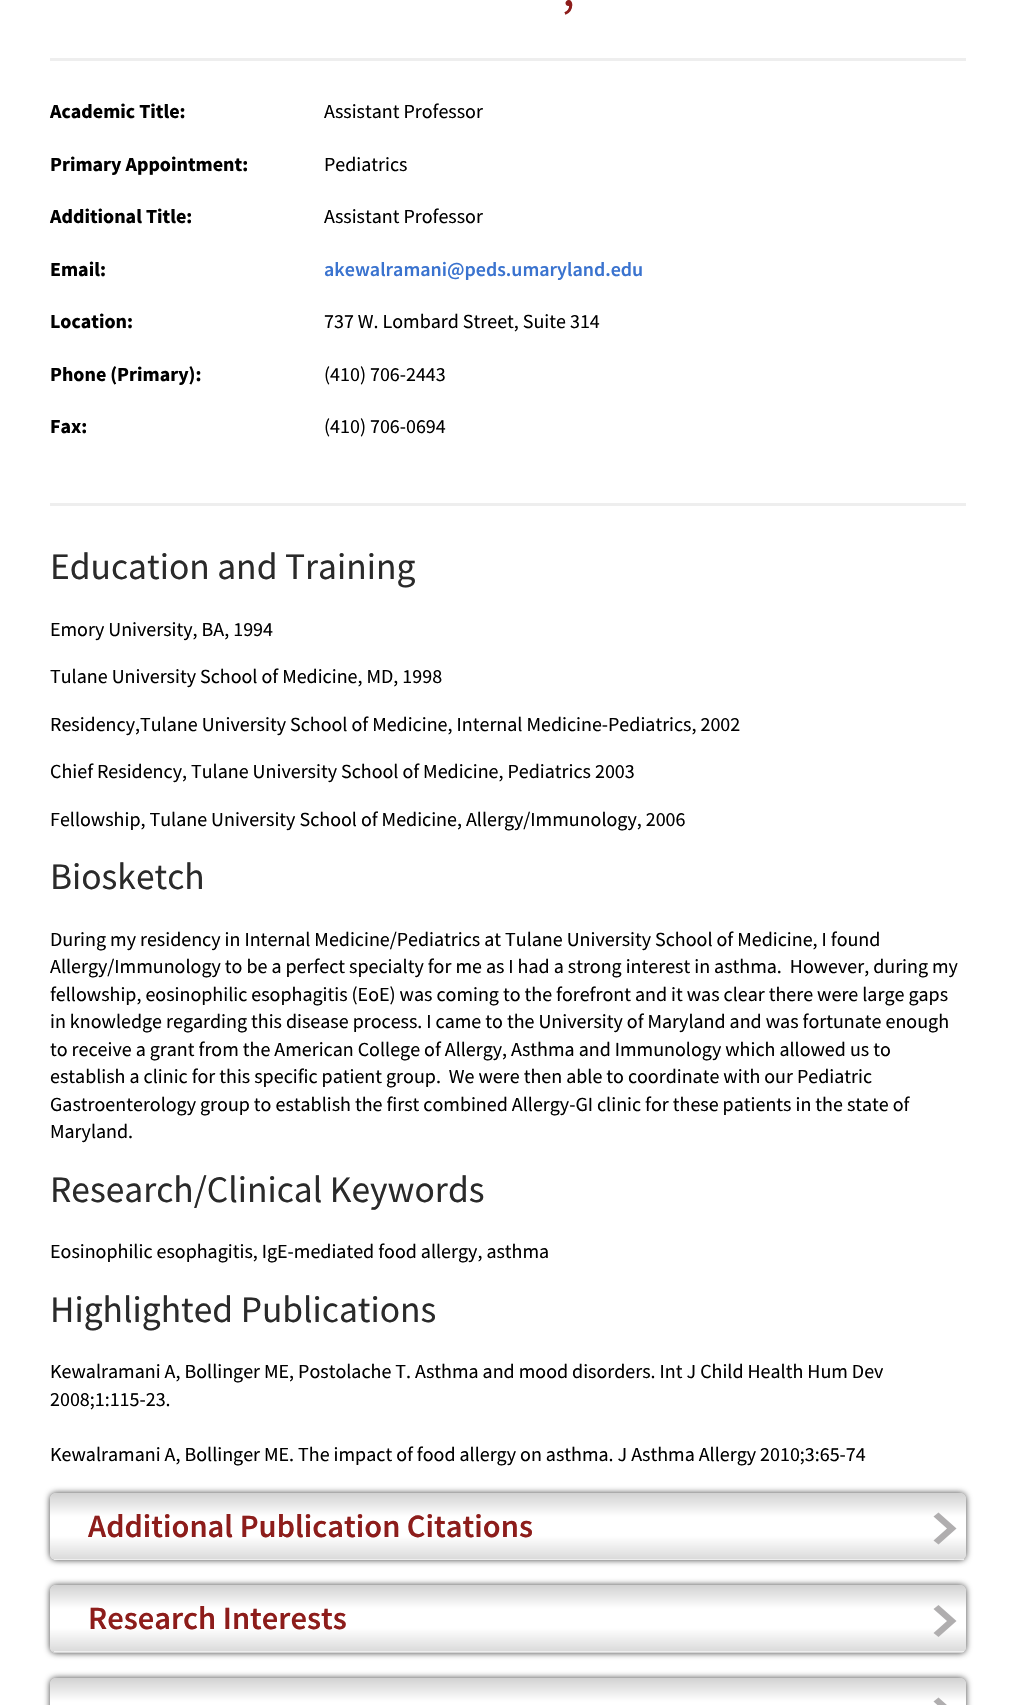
#include "include/core/SkBlurTypes.h"
#include "include/core/SkCanvas.h"
#include "include/core/SkData.h"
#include "include/core/SkFont.h"
#include "include/core/SkFontMgr.h"
#include "include/core/SkImage.h"
#include "include/core/SkMaskFilter.h"
#include "include/core/SkPaint.h"
#include "include/core/SkPathBuilder.h"
#include "include/core/SkTextBlob.h"
#include "include/effects/SkDashPathEffect.h"
#include "include/effects/SkGradientShader.h"
#include "include/utils/SkParsePath.h"

extern sk_sp<SkFontMgr> fontMgr;

void draw(SkCanvas* canvas) {
  SkPaint p;
  p.setAntiAlias(true);
  canvas->clear(SK_ColorWHITE);
  p.setColor(SkColorSetRGB(238, 238, 238));
  canvas->drawRect(SkRect::MakeLTRB(50, 58, 966, 61), p);
  canvas->drawRect(SkRect::MakeLTRB(50, 503, 966, 506), p);
  p.setColor(SkColorSetARGB(191, 0, 0, 0));
  p.setMaskFilter(SkMaskFilter::MakeBlur(kNormal_SkBlurStyle, 3));
  canvas->drawRoundRect(SkRect::MakeLTRB(50, 1493, 966, 1560), 6, 6, p);
  p.setMaskFilter(nullptr);
  p.setColor(SkColorSetRGB(238, 238, 238));
  canvas->drawRoundRect(SkRect::MakeLTRB(50, 1493, 966, 1560), 6, 6, p);
  canvas->save();
  canvas->clipPath(SkPathBuilder().moveTo(56, 1493).lineTo(960, 1493).cubicTo(963.5f, 1493, 966, 1495.5f, 966, 1499).lineTo(966, 1554).cubicTo(966, 1557.5f, 963.5f, 1560, 960, 1560).lineTo(56, 1560).cubicTo(52.5f, 1560, 50, 1557.5f, 50, 1554).lineTo(50, 1499).cubicTo(50, 1495.5f, 52.5f, 1493, 56, 1493).close().detach(), true);
  {
    const SkColor colors[] = {SkColorSetRGB(219, 219, 219), SK_ColorWHITE, SK_ColorWHITE, SkColorSetRGB(209, 209, 209)};
    const float stops[] = {0, 0.35f, 0.64f, 1};
    const SkPoint ends[] = {{508, 1559}, {508, 1493}};
    p.setShader(SkGradientShader::MakeLinear(ends, colors, stops, 4, SkTileMode::kClamp));
    p.setAlpha(255);
  }
  canvas->drawPath(SkPathBuilder().moveTo(56, 1493).lineTo(960, 1493).cubicTo(963.5f, 1493, 966, 1495.5f, 966, 1499).lineTo(966, 1559).lineTo(50, 1559).lineTo(50, 1499).cubicTo(50, 1495.5f, 52.5f, 1493, 56, 1493).close().detach(), p);
  {
    const SkColor colors[] = {SkColorSetRGB(219, 219, 219), SK_ColorWHITE, SK_ColorWHITE, SkColorSetRGB(209, 209, 209)};
    const float stops[] = {0, 0.35f, 0.64f, 1};
    const SkPoint ends[] = {{508, 1625}, {508, 1559}};
    p.setShader(SkGradientShader::MakeLinear(ends, colors, stops, 4, SkTileMode::kClamp));
    p.setAlpha(255);
  }
  canvas->drawRect(SkRect::MakeLTRB(50, 1559, 54, 1560), p);
  canvas->restore();
  p.setShader(nullptr);
  p.setColor(SkColorSetRGB(238, 238, 238));
  canvas->drawRect(SkRect::MakeLTRB(54, 1559, 964, 1560), p);
  p.setColor(SkColorSetRGB(176, 174, 175));
  canvas->drawPath(SkPathBuilder().moveTo(956.5f, 1528.5f).lineTo(938.5f, 1544.5f).lineTo(933.5f, 1540.5f).lineTo(947, 1528.5f).lineTo(933.5f, 1516.5f).lineTo(938.5f, 1512.5f).close().detach(), p);
  p.setColor(SkColorSetARGB(191, 0, 0, 0));
  p.setMaskFilter(SkMaskFilter::MakeBlur(kNormal_SkBlurStyle, 3));
  canvas->drawRoundRect(SkRect::MakeLTRB(50, 1585, 966, 1653), 6, 6, p);
  p.setMaskFilter(nullptr);
  p.setColor(SkColorSetRGB(238, 238, 238));
  canvas->drawRoundRect(SkRect::MakeLTRB(50, 1585, 966, 1653), 6, 6, p);
  canvas->save();
  canvas->clipPath(SkPathBuilder().moveTo(56, 1585).lineTo(960, 1585).cubicTo(963.5f, 1585, 966, 1587.5f, 966, 1591).lineTo(966, 1647).cubicTo(966, 1650.5f, 963.5f, 1653, 960, 1653).lineTo(56, 1653).cubicTo(52.5f, 1653, 50, 1650.5f, 50, 1647).lineTo(50, 1591).cubicTo(50, 1587.5f, 52.5f, 1585, 56, 1585).close().detach(), true);
  {
    const SkColor colors[] = {SkColorSetRGB(219, 219, 219), SK_ColorWHITE, SK_ColorWHITE, SkColorSetRGB(209, 209, 209)};
    const float stops[] = {0, 0.35f, 0.64f, 1};
    const SkPoint ends[] = {{508, 1651}, {508, 1585}};
    p.setShader(SkGradientShader::MakeLinear(ends, colors, stops, 4, SkTileMode::kClamp));
    p.setAlpha(255);
  }
  canvas->drawPath(SkPathBuilder().moveTo(56, 1585).lineTo(960, 1585).cubicTo(963.5f, 1585, 966, 1587.5f, 966, 1591).lineTo(966, 1651).lineTo(50, 1651).lineTo(50, 1591).cubicTo(50, 1587.5f, 52.5f, 1585, 56, 1585).close().detach(), p);
  {
    const SkColor colors[] = {SkColorSetRGB(219, 219, 219), SK_ColorWHITE, SK_ColorWHITE, SkColorSetRGB(209, 209, 209)};
    const float stops[] = {0, 0.35f, 0.64f, 1};
    const SkPoint ends[] = {{508, 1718}, {508, 1651}};
    p.setShader(SkGradientShader::MakeLinear(ends, colors, stops, 4, SkTileMode::kClamp));
    p.setAlpha(255);
  }
  canvas->drawRect(SkRect::MakeLTRB(50, 1651, 966, 1653), p);
  canvas->restore();
  p.setShader(nullptr);
  p.setColor(SkColorSetRGB(238, 238, 238));
  canvas->drawRect(SkRect::MakeLTRB(54, 1651, 964, 1652), p);
  p.setColor(SkColorSetRGB(176, 174, 175));
  canvas->drawPath(SkPathBuilder().moveTo(956.5f, 1621).lineTo(938.5f, 1637).lineTo(933.5f, 1633).lineTo(947, 1621).lineTo(933.5f, 1609).lineTo(938.5f, 1605).close().detach(), p);
  p.setColor(SkColorSetARGB(191, 0, 0, 0));
  p.setMaskFilter(SkMaskFilter::MakeBlur(kNormal_SkBlurStyle, 3));
  canvas->drawRoundRect(SkRect::MakeLTRB(50, 1678, 966, 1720), 6, 6, p);
  p.setMaskFilter(nullptr);
  p.setColor(SkColorSetRGB(238, 238, 238));
  canvas->drawRoundRect(SkRect::MakeLTRB(50, 1678, 966, 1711), 6, 6, p);
  canvas->save();
  canvas->clipPath(SkPathBuilder().moveTo(56, 1678).lineTo(960, 1678).cubicTo(963.5f, 1678, 966, 1680.5f, 966, 1684).lineTo(966, 1739).cubicTo(966, 1742.5f, 963.5f, 1745, 960, 1745).lineTo(56, 1745).cubicTo(52.5f, 1745, 50, 1742.5f, 50, 1739).lineTo(50, 1684).cubicTo(50, 1680.5f, 52.5f, 1678, 56, 1678).close().detach(), true);
  {
    const SkColor colors[] = {SkColorSetRGB(219, 219, 219), SK_ColorWHITE, SK_ColorWHITE, SkColorSetRGB(209, 209, 209)};
    const float stops[] = {0, 0.35f, 0.64f, 1};
    const SkPoint ends[] = {{508, 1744}, {508, 1678}};
    p.setShader(SkGradientShader::MakeLinear(ends, colors, stops, 4, SkTileMode::kClamp));
    p.setAlpha(255);
  }
  canvas->drawPath(SkPathBuilder().moveTo(56, 1678).lineTo(960, 1678).cubicTo(963.5f, 1678, 966, 1680.5f, 966, 1684).lineTo(966, 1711).lineTo(50, 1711).lineTo(50, 1684).cubicTo(50, 1680.5f, 52.5f, 1678, 56, 1678).close().detach(), p);
  canvas->restore();
  p.setShader(nullptr);
  p.setColor(SkColorSetRGB(176, 174, 175));
  canvas->drawPath(SkPathBuilder().moveTo(956.5f, 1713.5f).lineTo(938.5f, 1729.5f).lineTo(933.5f, 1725.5f).lineTo(947, 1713.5f).lineTo(933.5f, 1701.5f).lineTo(938.5f, 1697.5f).close().detach(), p);
  SkFont font1(fontMgr->matchFamilyStyle("Source Sans Pro", SkFontStyle::Normal()), 52);
  font1.setSubpixel(true);
  p.setColor(SkColorSetRGB(141, 29, 27));
  canvas->drawString(",", 562, 6, font1, p);
  SkFont font2(fontMgr->matchFamilyStyle("Source Sans Pro", SkFontStyle::Bold()), 20);
  font2.setSubpixel(true);
  p.setColor(SK_ColorBLACK);
  canvas->drawString("Academic Title:", 50, 118, font2, p);
  SkFont font3(fontMgr->matchFamilyStyle("Source Sans Pro", SkFontStyle::Normal()), 20);
  font3.setSubpixel(true);
  canvas->drawString("Assistant Professor", 324, 118, font3, p);
  canvas->drawString("Primary Appointment:", 50, 171, font2, p);
  canvas->drawString("Pediatrics", 324, 171, font3, p);
  canvas->drawString("Additional Title:", 50, 223, font2, p);
  canvas->drawString("Assistant Professor", 324, 223, font3, p);
  canvas->drawString("Email:", 50, 276, font2, p);
  SkFont font4(fontMgr->matchFamilyStyle("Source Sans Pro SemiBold", SkFontStyle(600, SkFontStyle::kNormal_Width, SkFontStyle::kUpright_Slant)), 20);
  font4.setSubpixel(true);
  p.setColor(SkColorSetRGB(58, 115, 207));
  canvas->drawString("akewalramani@peds.umaryland.edu", 324, 276, font4, p);
  p.setColor(SK_ColorBLACK);
  canvas->drawString("Location:", 50, 328, font2, p);
  canvas->drawString("737 W. Lombard Street, Suite 314", 324, 328, font3, p);
  canvas->drawString("Phone (Primary):", 50, 381, font2, p);
  canvas->drawString("(410) 706-2443", 324, 381, font3, p);
  canvas->drawString("Fax:", 50, 433, font2, p);
  canvas->drawString("(410) 706-0694", 324, 433, font3, p);
  SkFont font5(fontMgr->matchFamilyStyle("Source Sans Pro", SkFontStyle::Normal()), 37.5f);
  font5.setSubpixel(true);
  p.setColor(SkColorSetRGB(42, 42, 42));
  canvas->drawString("Education and Training", 50, 579, font5, p);
  p.setColor(SK_ColorBLACK);
  canvas->drawString("Emory University, BA, 1994", 50, 636, font3, p);
  canvas->drawString("Tulane University School of Medicine, MD, 1998", 50, 683, font3, p);
  canvas->drawString("Residency,Tulane University School of Medicine, Internal Medicine-Pediatrics, 2002", 50, 731, font3, p);
  canvas->drawString("Chief Residency, Tulane University School of Medicine, Pediatrics 2003", 50, 778, font3, p);
  canvas->drawString("Fellowship, Tulane University School of Medicine, Allergy/Immunology, 2006", 50, 826, font3, p);
  p.setColor(SkColorSetRGB(42, 42, 42));
  canvas->drawString("Biosketch", 50, 889, font5, p);
  p.setColor(SK_ColorBLACK);
  canvas->drawString("During my residency in Internal Medicine/Pediatrics at Tulane University School of Medicine, I found", 50, 946, font3, p);
  canvas->drawString("Allergy/Immunology to be a perfect specialty for me as I had a strong interest in asthma.  However, during my", 50, 973, font3, p);
  canvas->drawString("fellowship, eosinophilic esophagitis (EoE) was coming to the forefront and it was clear there were large gaps", 50, 1001, font3, p);
  canvas->drawString("in knowledge regarding this disease process. I came to the University of Maryland and was fortunate enough", 50, 1028, font3, p);
  canvas->drawString("to receive a grant from the American College of Allergy, Asthma and Immunology which allowed us to", 50, 1056, font3, p);
  canvas->drawString("establish a clinic for this specific patient group.  We were then able to coordinate with our Pediatric", 50, 1083, font3, p);
  canvas->drawString("Gastroenterology group to establish the first combined Allergy-GI clinic for these patients in the state of", 50, 1111, font3, p);
  canvas->drawString("Maryland.", 50, 1138, font3, p);
  p.setColor(SkColorSetRGB(42, 42, 42));
  canvas->drawString("Research/Clinical Keywords", 50, 1202, font5, p);
  p.setColor(SK_ColorBLACK);
  canvas->drawString("Eosinophilic esophagitis, IgE-mediated food allergy, asthma", 50, 1258, font3, p);
  p.setColor(SkColorSetRGB(42, 42, 42));
  canvas->drawString("Highlighted Publications", 50, 1322, font5, p);
  p.setColor(SK_ColorBLACK);
  canvas->drawString("Kewalramani A, Bollinger ME, Postolache T. Asthma and mood disorders. Int J Child Health Hum Dev", 50, 1378, font3, p);
  canvas->drawString("2008;1:115-23.", 50, 1406, font3, p);
  canvas->drawString("Kewalramani A, Bollinger ME. The impact of food allergy on asthma. J Asthma Allergy 2010;3:65-74", 50, 1461, font3, p);
  SkFont font6(fontMgr->matchFamilyStyle("Source Sans Pro SemiBold", SkFontStyle(600, SkFontStyle::kNormal_Width, SkFontStyle::kUpright_Slant)), 32.5f);
  font6.setSubpixel(true);
  p.setColor(SkColorSetRGB(141, 29, 27));
  canvas->drawString("Additional Publication Citations", 88, 1537, font6, p);
  canvas->drawString("Research Interests", 88, 1629, font6, p);
}
